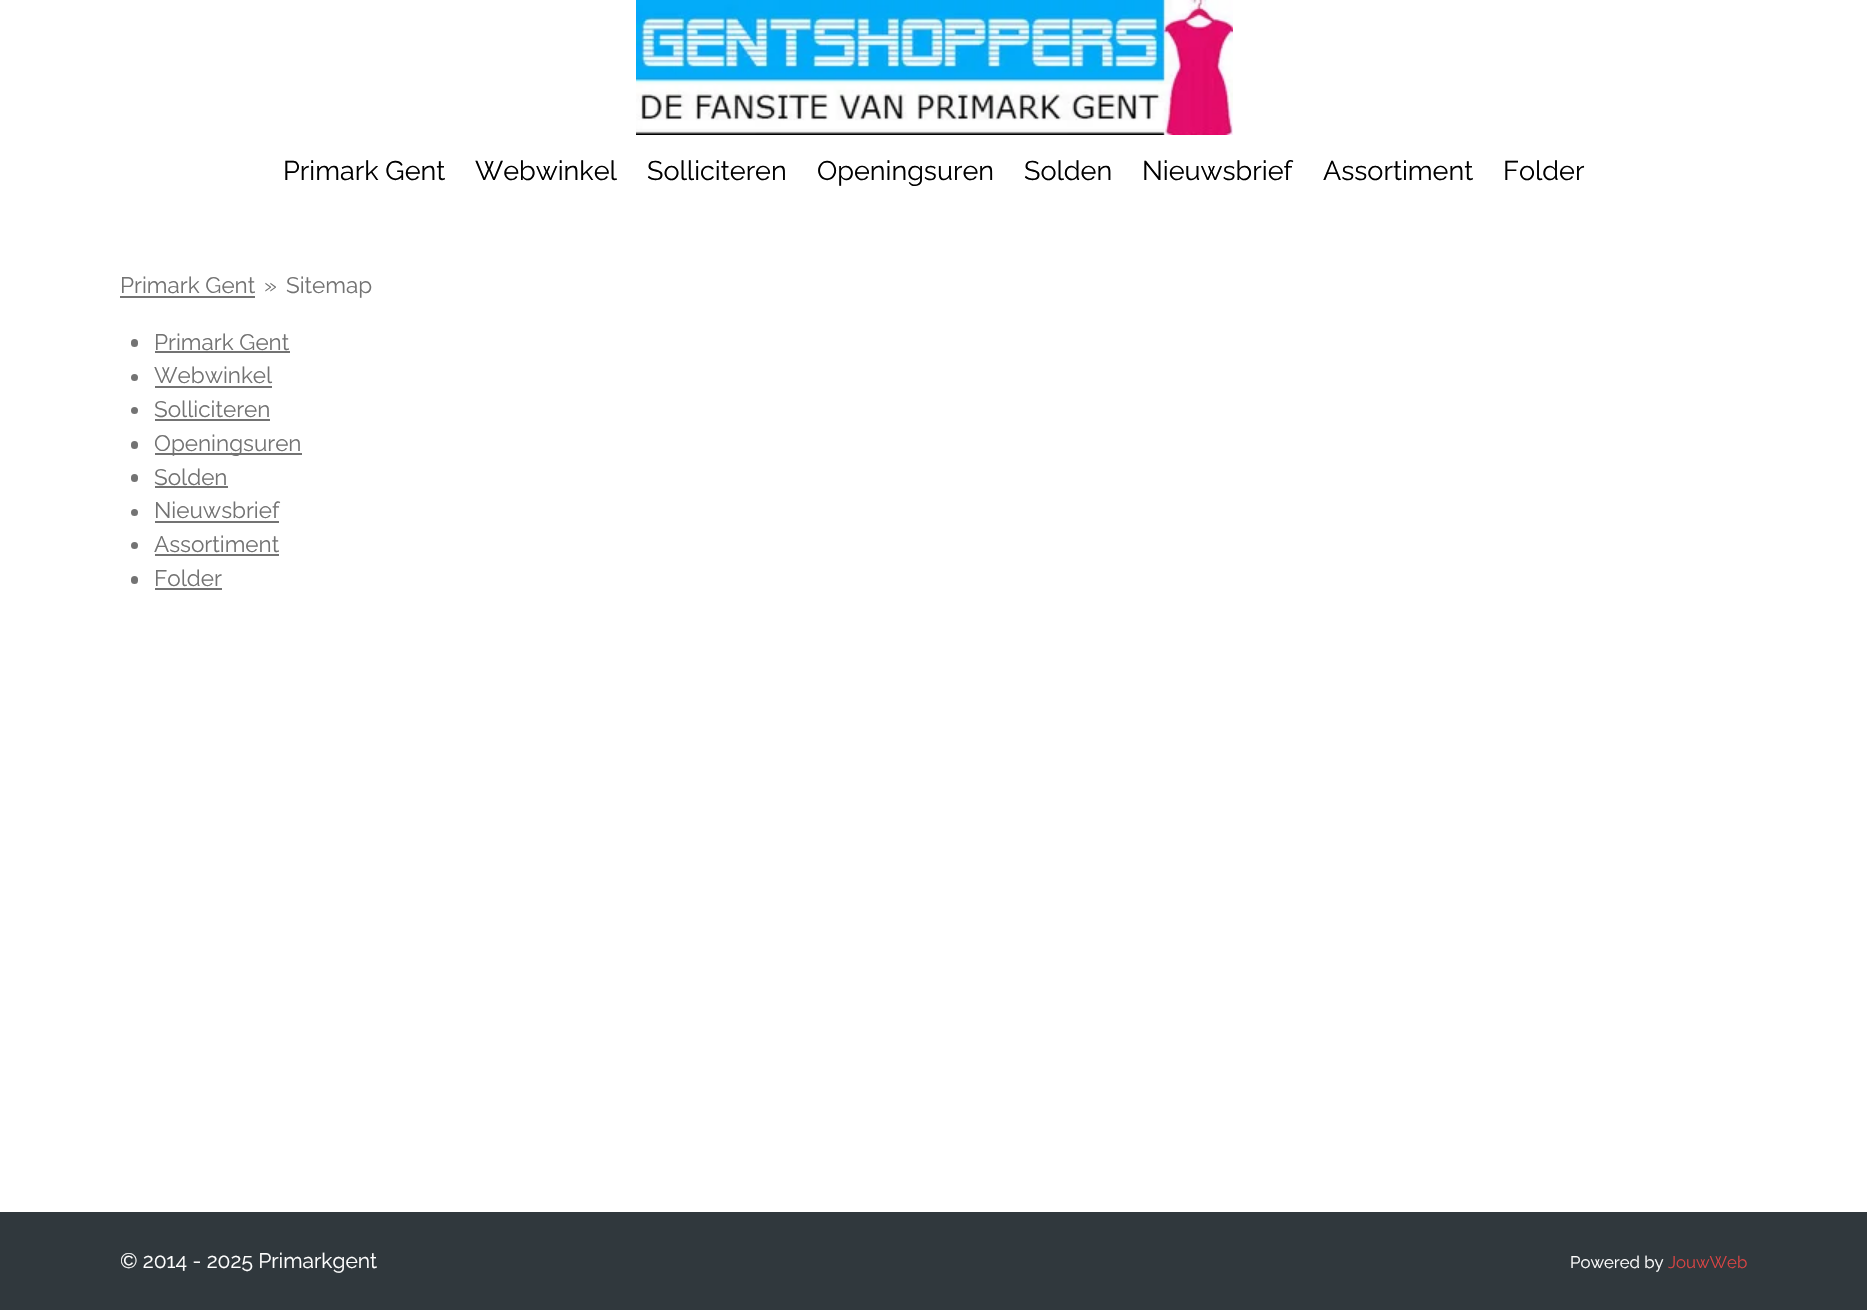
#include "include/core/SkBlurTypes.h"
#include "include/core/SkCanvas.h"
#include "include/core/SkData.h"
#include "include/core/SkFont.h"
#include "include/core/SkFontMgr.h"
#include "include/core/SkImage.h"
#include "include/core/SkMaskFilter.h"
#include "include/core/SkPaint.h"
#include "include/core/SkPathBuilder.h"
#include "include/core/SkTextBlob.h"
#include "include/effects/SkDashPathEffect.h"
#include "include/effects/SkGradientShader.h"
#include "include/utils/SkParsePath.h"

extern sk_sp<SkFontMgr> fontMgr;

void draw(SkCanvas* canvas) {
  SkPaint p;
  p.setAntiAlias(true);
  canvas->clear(SK_ColorWHITE);
  canvas->drawImageRect(SkImages::DeferredFromEncodedData(SkData::MakeFromFileName("images/1.png")), SkRect::MakeLTRB(636, 0, 1233, 135), SkSamplingOptions());
  p.setColor(SkColorSetRGB(115, 115, 115));
  canvas->drawRect(SkRect::MakeLTRB(120, 296, 255, 298), p);
  canvas->drawRoundRect(SkRect::MakeLTRB(131, 339, 138, 347), 3.5f, 3.5f, p);
  canvas->drawRect(SkRect::MakeLTRB(155, 351, 290, 353), p);
  canvas->drawCircle(134.5f, 377.5f, 3.5f, p);
  canvas->drawRect(SkRect::MakeLTRB(155, 386, 272, 388), p);
  canvas->drawCircle(134.5f, 410.5f, 3.5f, p);
  canvas->drawRect(SkRect::MakeLTRB(155, 419, 270, 421), p);
  canvas->drawRoundRect(SkRect::MakeLTRB(131, 441, 138, 449), 3.5f, 3.5f, p);
  canvas->drawRect(SkRect::MakeLTRB(155, 453, 302, 455), p);
  canvas->drawRoundRect(SkRect::MakeLTRB(131, 474, 138, 482), 3.5f, 3.5f, p);
  canvas->drawRect(SkRect::MakeLTRB(155, 486, 228, 488), p);
  canvas->drawCircle(134.5f, 512.5f, 3.5f, p);
  canvas->drawRect(SkRect::MakeLTRB(155, 521, 279, 523), p);
  canvas->drawCircle(134.5f, 545.5f, 3.5f, p);
  canvas->drawRect(SkRect::MakeLTRB(155, 554, 279, 556), p);
  canvas->drawRoundRect(SkRect::MakeLTRB(131, 576, 138, 584), 3.5f, 3.5f, p);
  canvas->drawRect(SkRect::MakeLTRB(155, 588, 222, 590), p);
  p.setColor(SkColorSetRGB(48, 56, 61));
  canvas->drawRect(SkRect::MakeLTRB(0, 1212, 1867, 1310), p);
  SkFont font1(fontMgr->matchFamilyStyle("Raleway", SkFontStyle::Normal()), 27);
  font1.setSubpixel(true);
  p.setColor(SK_ColorBLACK);
  canvas->drawString("Primark Gent", 283, 180, font1, p);
  canvas->drawString("Webwinkel", 475, 180, font1, p);
  canvas->drawString("Solliciteren", 647, 180, font1, p);
  canvas->drawString("Openingsuren", 817, 180, font1, p);
  canvas->drawString("Solden", 1024, 180, font1, p);
  canvas->drawString("Nieuwsbrief", 1142, 180, font1, p);
  canvas->drawString("Assortiment", 1323, 180, font1, p);
  canvas->drawString("Folder", 1503, 180, font1, p);
  SkFont font2(fontMgr->matchFamilyStyle("Raleway", SkFontStyle::Normal()), 22.5f);
  font2.setSubpixel(true);
  p.setColor(SkColorSetRGB(115, 115, 115));
  canvas->drawString("Primark Gent", 120, 293, font2, p);
  canvas->drawString("»", 264, 293, font2, p);
  canvas->drawString("Sitemap", 286, 293, font2, p);
  canvas->drawString("Primark Gent", 154, 350, font2, p);
  canvas->drawString("Webwinkel", 154, 383, font2, p);
  canvas->drawString("Solliciteren", 154, 417, font2, p);
  canvas->drawString("Openingsuren", 154, 451, font2, p);
  canvas->drawString("Solden", 154, 485, font2, p);
  canvas->drawString("Nieuwsbrief", 154, 518, font2, p);
  canvas->drawString("Assortiment", 154, 552, font2, p);
  canvas->drawString("Folder", 154, 586, font2, p);
  SkFont font3(fontMgr->matchFamilyStyle("Raleway", SkFontStyle::Normal()), 21);
  font3.setSubpixel(true);
  p.setColor(SK_ColorWHITE);
  canvas->drawString("© 2014 - 2025 Primarkgent", 120, 1268, font3, p);
  SkFont font4(fontMgr->matchFamilyStyle("Raleway", SkFontStyle::Normal()), 16.75f);
  font4.setSubpixel(true);
  canvas->drawString("Powered by", 1570, 1268, font4, p);
  p.setColor(SkColorSetRGB(218, 68, 68));
  canvas->drawString("JouwWeb", 1668, 1268, font4, p);
}
